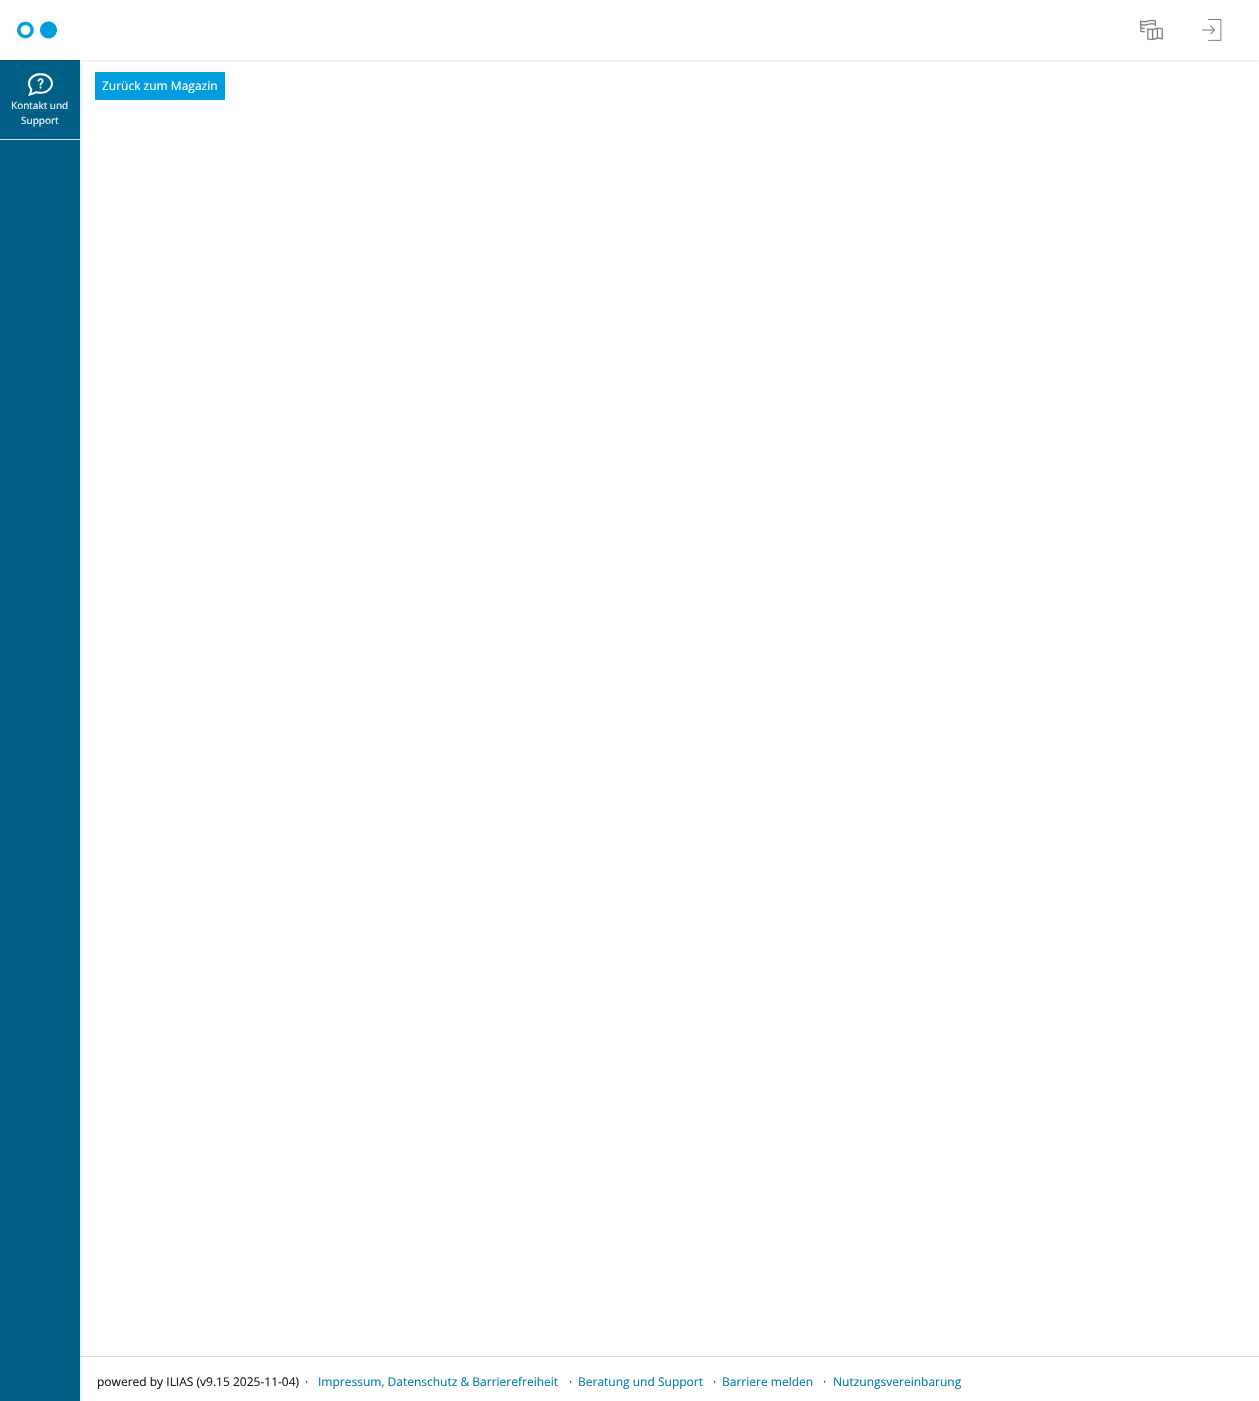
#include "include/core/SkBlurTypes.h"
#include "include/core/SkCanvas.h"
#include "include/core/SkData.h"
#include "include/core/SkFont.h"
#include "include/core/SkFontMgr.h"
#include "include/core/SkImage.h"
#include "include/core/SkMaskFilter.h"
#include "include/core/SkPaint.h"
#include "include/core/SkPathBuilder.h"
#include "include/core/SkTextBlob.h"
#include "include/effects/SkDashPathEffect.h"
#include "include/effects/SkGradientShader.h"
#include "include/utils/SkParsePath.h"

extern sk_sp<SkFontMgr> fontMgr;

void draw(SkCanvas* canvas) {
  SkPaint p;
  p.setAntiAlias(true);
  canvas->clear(SK_ColorWHITE);
  p.setColor(SkColorSetRGB(0, 95, 134));
  canvas->drawRect(SkRect::MakeLTRB(0, 60, 80, 1401), p);
  canvas->save();
  canvas->clipRect(SkRect::MakeLTRB(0, 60, 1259, 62));
  p.setColor(SkColorSetARGB(26, 0, 0, 0));
  p.setMaskFilter(SkMaskFilter::MakeBlur(kNormal_SkBlurStyle, 1));
  canvas->drawRect(SkRect::MakeLTRB(0, 1, 1259, 61), p);
  p.setMaskFilter(nullptr);
  canvas->restore();
  canvas->drawImageRect(SkImages::DeferredFromEncodedData(SkData::MakeFromFileName("images/1.png")), SkRect::MakeLTRB(17, 21, 57, 39), SkSamplingOptions());
  canvas->drawImageRect(SkImages::DeferredFromEncodedData(SkData::MakeFromFileName("images/2.png")), SkRect::MakeLTRB(1140, 19, 1163, 41), SkSamplingOptions());
  canvas->drawImageRect(SkImages::DeferredFromEncodedData(SkData::MakeFromFileName("images/3.png")), SkRect::MakeLTRB(1202, 19, 1222, 41), SkSamplingOptions());
  p.setColor(SkColorSetRGB(221, 221, 221));
  canvas->drawRect(SkRect::MakeLTRB(80, 1356, 1259, 1357), p);
  canvas->save();
  canvas->clipRect(SkRect::MakeLTRB(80, 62, 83, 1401));
  p.setColor(SkColorSetARGB(26, 0, 0, 0));
  p.setMaskFilter(SkMaskFilter::MakeBlur(kNormal_SkBlurStyle, 2));
  canvas->drawRect(SkRect::MakeLTRB(1, 63, 81, 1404), p);
  p.setMaskFilter(nullptr);
  canvas->restore();
  p.setColor(SkColorSetRGB(221, 221, 221));
  canvas->drawRect(SkRect::MakeLTRB(0, 139, 80, 140), p);
  canvas->drawImageRect(SkImages::DeferredFromEncodedData(SkData::MakeFromFileName("images/4.png")), SkRect::MakeLTRB(28, 73, 53, 96), SkSamplingOptions());
  p.setColor(SkColorSetRGB(0, 158, 224));
  canvas->drawRect(SkRect::MakeLTRB(95, 72, 225, 100), p);
  SkFont font1(fontMgr->matchFamilyStyle("Open Sans", SkFontStyle::Normal()), 10);
  font1.setSubpixel(true);
  p.setColor(SK_ColorWHITE);
  canvas->drawString("Kontakt und", 11, 109, font1, p);
  canvas->drawString("Support", 21, 124, font1, p);
  SkFont font2(fontMgr->matchFamilyStyle("Open Sans", SkFontStyle::Normal()), 12);
  font2.setSubpixel(true);
  canvas->drawString("Zurück zum Magazin", 102, 90, font2, p);
  p.setColor(SkColorSetRGB(22, 22, 22));
  canvas->drawString("powered by ILIAS (v9.15 2025-11-04)", 97, 1386, font2, p);
  canvas->drawString("·", 305, 1386, font2, p);
  p.setColor(SkColorSetRGB(0, 122, 173));
  canvas->drawString("Impressum, Datenschutz & Barrierefreiheit", 318, 1386, font2, p);
  p.setColor(SkColorSetRGB(22, 22, 22));
  canvas->drawString("·", 569, 1386, font2, p);
  p.setColor(SkColorSetRGB(0, 122, 173));
  canvas->drawString("Beratung und Support", 578, 1386, font2, p);
  p.setColor(SkColorSetRGB(22, 22, 22));
  canvas->drawString("·", 713, 1386, font2, p);
  p.setColor(SkColorSetRGB(0, 122, 173));
  canvas->drawString("Barriere melden", 722, 1386, font2, p);
  p.setColor(SkColorSetRGB(22, 22, 22));
  canvas->drawString("·", 823, 1386, font2, p);
  p.setColor(SkColorSetRGB(0, 122, 173));
  canvas->drawString("Nutzungsvereinbarung", 833, 1386, font2, p);
}
